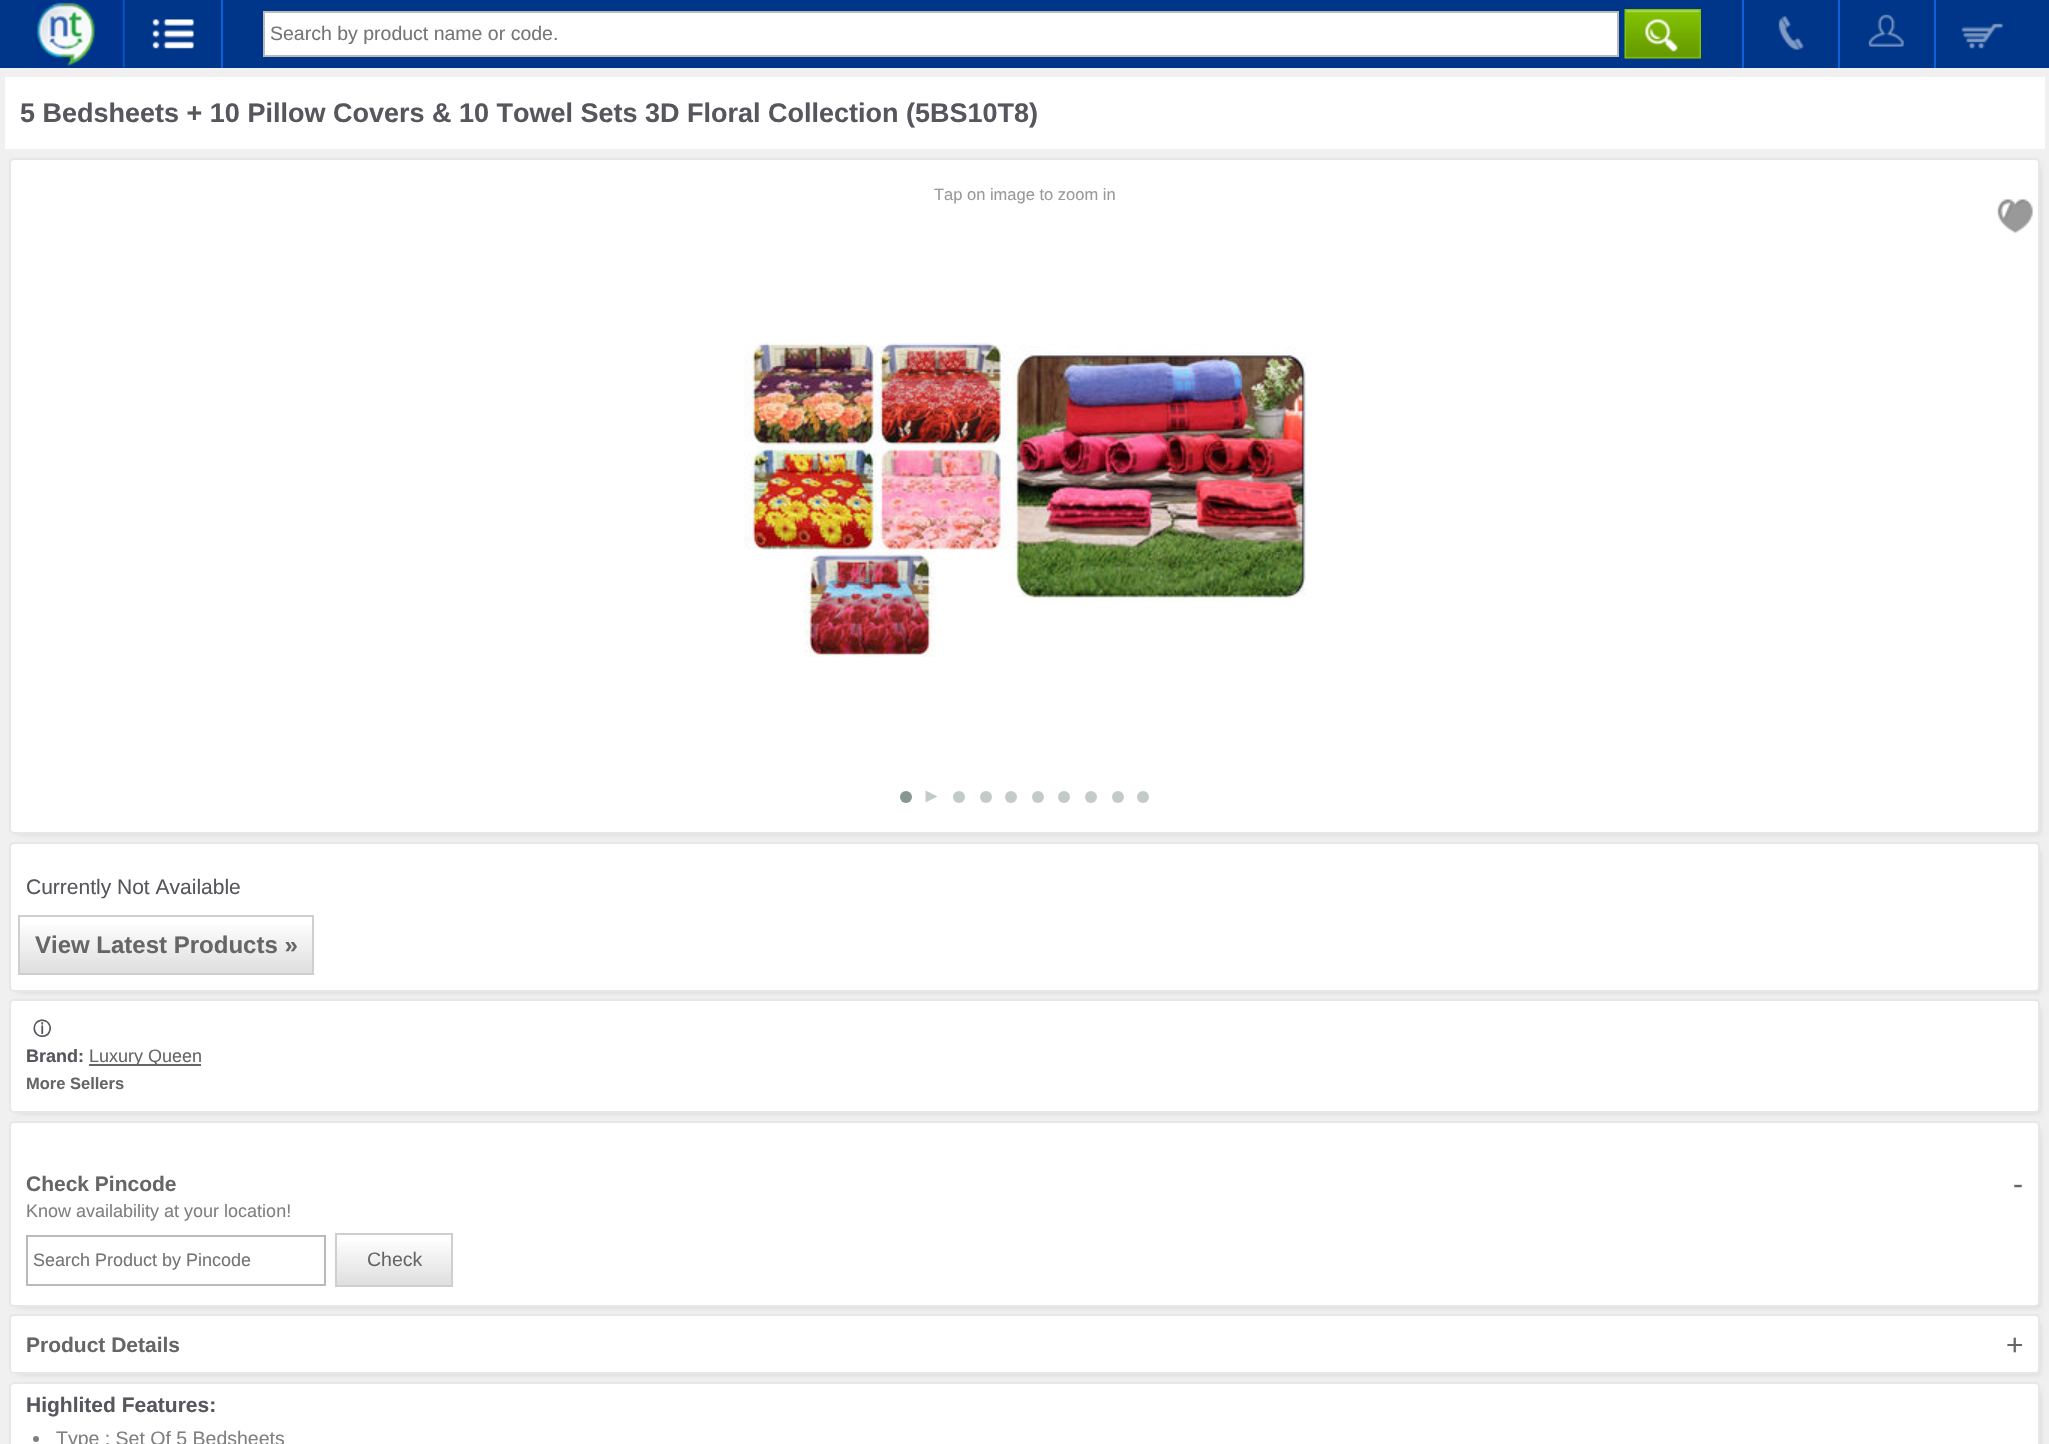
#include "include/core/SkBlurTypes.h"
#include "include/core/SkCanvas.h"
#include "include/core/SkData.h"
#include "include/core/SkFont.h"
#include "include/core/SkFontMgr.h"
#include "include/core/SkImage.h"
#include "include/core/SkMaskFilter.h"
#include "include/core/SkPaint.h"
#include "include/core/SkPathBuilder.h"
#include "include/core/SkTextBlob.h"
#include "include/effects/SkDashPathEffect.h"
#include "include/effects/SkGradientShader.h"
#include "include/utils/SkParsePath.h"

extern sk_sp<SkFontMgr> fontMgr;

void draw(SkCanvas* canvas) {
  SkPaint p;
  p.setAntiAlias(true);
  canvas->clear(SkColorSetRGB(240, 240, 240));
  p.setColor(SkColorSetRGB(0, 54, 138));
  canvas->drawRect(SkRect::MakeLTRB(0, 0, 2049, 68), p);
  canvas->drawImageRect(SkImages::DeferredFromEncodedData(SkData::MakeFromFileName("images/1.png")), SkRect::MakeLTRB(35, 0, 125, 68), SkSamplingOptions());
  canvas->drawImageRect(SkImages::DeferredFromEncodedData(SkData::MakeFromFileName("images/2.png")), SkRect::MakeLTRB(152, 19, 194, 49), SkSamplingOptions());
  p.setColor(SkColorSetRGB(12, 96, 219));
  canvas->drawRect(SkRect::MakeLTRB(221, 0, 223, 68), p);
  p.setColor(SK_ColorWHITE);
  canvas->drawRect(SkRect::MakeLTRB(264, 12, 1618, 56), p);
  p.setStyle(SkPaint::kStroke_Style);
  p.setStrokeWidth(2);
  p.setColor(SkColorSetRGB(186, 186, 186));
  canvas->drawRect(SkRect::MakeLTRB(264, 12, 1618, 56), p);
  canvas->drawImageRect(SkImages::DeferredFromEncodedData(SkData::MakeFromFileName("images/3.png")), SkRect::MakeLTRB(1624, 9, 1701, 59), SkSamplingOptions());
  p.setStyle(SkPaint::kFill_Style);
  p.setColor(SkColorSetRGB(12, 96, 219));
  canvas->drawRect(SkRect::MakeLTRB(1742, 0, 1744, 68), p);
  canvas->drawImageRect(SkImages::DeferredFromEncodedData(SkData::MakeFromFileName("images/4.png")), SkRect::MakeLTRB(1778, 16, 1804, 50), SkSamplingOptions());
  canvas->drawRect(SkRect::MakeLTRB(1838, 0, 1840, 68), p);
  canvas->drawImageRect(SkImages::DeferredFromEncodedData(SkData::MakeFromFileName("images/5.png")), SkRect::MakeLTRB(1868, 14, 1904, 47), SkSamplingOptions());
  canvas->drawRect(SkRect::MakeLTRB(1934, 0, 1936, 68), p);
  canvas->drawImageRect(SkImages::DeferredFromEncodedData(SkData::MakeFromFileName("images/6.png")), SkRect::MakeLTRB(1961, 23, 2003, 49), SkSamplingOptions());
  p.setColor(SK_ColorWHITE);
  canvas->drawRect(SkRect::MakeLTRB(5, 77, 2045, 149), p);
  p.setColor(SkColorSetRGB(211, 211, 211));
  p.setMaskFilter(SkMaskFilter::MakeBlur(kNormal_SkBlurStyle, 3));
  canvas->drawRect(SkRect::MakeLTRB(18, 851, 2040, 992), p);
  p.setMaskFilter(nullptr);
  p.setColor(SK_ColorWHITE);
  canvas->drawRoundRect(SkRect::MakeLTRB(10, 843, 2039, 991), 4, 4, p);
  p.setStyle(SkPaint::kStroke_Style);
  p.setColor(SkColorSetRGB(231, 231, 231));
  canvas->drawRoundRect(SkRect::MakeLTRB(10, 843, 2039, 991), 4, 4, p);
  p.setStyle(SkPaint::kFill_Style);
  p.setColor(SkColorSetRGB(211, 211, 211));
  p.setMaskFilter(SkMaskFilter::MakeBlur(kNormal_SkBlurStyle, 3));
  canvas->drawRect(SkRect::MakeLTRB(18, 167, 2040, 834), p);
  p.setMaskFilter(nullptr);
  p.setColor(SK_ColorWHITE);
  canvas->drawRoundRect(SkRect::MakeLTRB(10, 159, 2039, 833), 4, 4, p);
  p.setStyle(SkPaint::kStroke_Style);
  p.setColor(SkColorSetRGB(231, 231, 231));
  canvas->drawRoundRect(SkRect::MakeLTRB(10, 159, 2039, 833), 4, 4, p);
  canvas->drawImageRect(SkImages::DeferredFromEncodedData(SkData::MakeFromFileName("images/7.png")), SkRect::MakeLTRB(1997, 199, 2033, 233), SkSamplingOptions());
  canvas->drawImageRect(SkImages::DeferredFromEncodedData(SkData::MakeFromFileName("images/8.png")), SkRect::MakeLTRB(744, 342, 1307, 657), SkSamplingOptions());
  p.setStyle(SkPaint::kFill_Style);
  p.setColor(SkColorSetRGB(134, 151, 145));
  canvas->drawCircle(906, 797, 6, p);
  p.setColor(SkColorSetRGB(195, 203, 200));
  canvas->drawPath(SkPathBuilder().moveTo(925.5f, 802.5f).lineTo(925.5f, 790.5f).lineTo(937.5f, 796.5f).close().detach(), p);
  canvas->drawCircle(959, 797, 6, p);
  canvas->drawCircle(986, 797, 6, p);
  canvas->drawCircle(1011, 797, 6, p);
  canvas->drawCircle(1038, 797, 6, p);
  canvas->drawCircle(1064, 797, 6, p);
  canvas->drawCircle(1091, 797, 6, p);
  canvas->drawCircle(1118, 797, 6, p);
  canvas->drawCircle(1143, 797, 6, p);
  {
    const SkColor colors[] = {SK_ColorWHITE, SkColorSetRGB(222, 222, 222)};
    const float stops[] = {0.05f, 1};
    const SkPoint ends[] = {{166, 917}, {166, 974}};
    p.setShader(SkGradientShader::MakeLinear(ends, colors, stops, 2, SkTileMode::kClamp));
    p.setAlpha(255);
  }
  canvas->drawRect(SkRect::MakeLTRB(20, 924, 312, 973), p);
  p.setStyle(SkPaint::kStroke_Style);
  p.setShader(nullptr);
  p.setColor(SkColorSetRGB(207, 207, 207));
  canvas->drawRect(SkRect::MakeLTRB(19, 916, 313, 974), p);
  p.setStyle(SkPaint::kFill_Style);
  p.setColor(SkColorSetRGB(211, 211, 211));
  p.setMaskFilter(SkMaskFilter::MakeBlur(kNormal_SkBlurStyle, 3));
  canvas->drawRect(SkRect::MakeLTRB(18, 1008, 2040, 1113), p);
  p.setMaskFilter(nullptr);
  p.setColor(SK_ColorWHITE);
  canvas->drawRoundRect(SkRect::MakeLTRB(10, 1000, 2039, 1112), 4, 4, p);
  p.setStyle(SkPaint::kStroke_Style);
  p.setColor(SkColorSetRGB(231, 231, 231));
  canvas->drawRoundRect(SkRect::MakeLTRB(10, 1000, 2039, 1112), 4, 4, p);
  p.setStyle(SkPaint::kFill_Style);
  p.setColor(SkColorSetRGB(102, 102, 102));
  canvas->drawRect(SkRect::MakeLTRB(89, 1064, 201, 1066), p);
  p.setColor(SkColorSetRGB(211, 211, 211));
  p.setMaskFilter(SkMaskFilter::MakeBlur(kNormal_SkBlurStyle, 3));
  canvas->drawRect(SkRect::MakeLTRB(18, 1130, 2040, 1307), p);
  p.setMaskFilter(nullptr);
  p.setColor(SK_ColorWHITE);
  canvas->drawRoundRect(SkRect::MakeLTRB(10, 1122, 2039, 1306), 4, 4, p);
  p.setStyle(SkPaint::kStroke_Style);
  p.setColor(SkColorSetRGB(231, 231, 231));
  canvas->drawRoundRect(SkRect::MakeLTRB(10, 1122, 2039, 1306), 4, 4, p);
  p.setColor(SkColorSetRGB(186, 186, 186));
  canvas->drawRect(SkRect::MakeLTRB(27, 1236, 325, 1285), p);
  p.setStyle(SkPaint::kFill_Style);
  {
    const SkColor colors[] = {SK_ColorWHITE, SkColorSetRGB(222, 222, 222)};
    const float stops[] = {0.05f, 1};
    const SkPoint ends[] = {{394, 1235}, {394, 1286}};
    p.setShader(SkGradientShader::MakeLinear(ends, colors, stops, 2, SkTileMode::kClamp));
    p.setAlpha(255);
  }
  canvas->drawRect(SkRect::MakeLTRB(337, 1241, 451, 1285), p);
  p.setStyle(SkPaint::kStroke_Style);
  p.setShader(nullptr);
  p.setColor(SkColorSetRGB(207, 207, 207));
  canvas->drawRect(SkRect::MakeLTRB(336, 1234, 452, 1286), p);
  p.setStyle(SkPaint::kFill_Style);
  p.setColor(SkColorSetRGB(211, 211, 211));
  p.setMaskFilter(SkMaskFilter::MakeBlur(kNormal_SkBlurStyle, 3));
  canvas->drawRect(SkRect::MakeLTRB(18, 1323, 2040, 1374), p);
  p.setMaskFilter(nullptr);
  p.setColor(SK_ColorWHITE);
  canvas->drawRoundRect(SkRect::MakeLTRB(10, 1315, 2039, 1373), 4, 4, p);
  p.setStyle(SkPaint::kStroke_Style);
  p.setColor(SkColorSetRGB(231, 231, 231));
  canvas->drawRoundRect(SkRect::MakeLTRB(10, 1315, 2039, 1373), 4, 4, p);
  p.setStyle(SkPaint::kFill_Style);
  p.setColor(SkColorSetRGB(211, 211, 211));
  p.setMaskFilter(SkMaskFilter::MakeBlur(kNormal_SkBlurStyle, 3));
  canvas->drawRect(SkRect::MakeLTRB(18, 1391, 2040, 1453), p);
  p.setMaskFilter(nullptr);
  p.setColor(SK_ColorWHITE);
  canvas->drawRoundRect(SkRect::MakeLTRB(10, 1383, 2039, 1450), 4, 4, p);
  p.setStyle(SkPaint::kStroke_Style);
  p.setColor(SkColorSetRGB(231, 231, 231));
  canvas->drawRoundRect(SkRect::MakeLTRB(10, 1383, 2039, 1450), 4, 4, p);
  p.setStyle(SkPaint::kFill_Style);
  p.setColor(SkColorSetRGB(128, 128, 128));
  canvas->drawCircle(36, 1439, 3, p);
  SkFont font1(fontMgr->matchFamilyStyle("Liberation Sans", SkFontStyle::Normal()), 19.5f);
  font1.setSubpixel(true);
  p.setColor(SkColorSetRGB(117, 117, 117));
  canvas->drawString("Search by product name or code.", 270, 40, font1, p);
  SkFont font2(fontMgr->matchFamilyStyle("Liberation Sans", SkFontStyle::Bold()), 27);
  font2.setSubpixel(true);
  p.setColor(SkColorSetRGB(86, 86, 92));
  canvas->drawString("5 Bedsheets + 10 Pillow Covers & 10 Towel Sets 3D Floral Collection (5BS10T8)", 20, 122, font2, p);
  SkFont font3(fontMgr->matchFamilyStyle("Liberation Sans", SkFontStyle::Normal()), 16.5f);
  font3.setSubpixel(true);
  p.setColor(SkColorSetRGB(153, 153, 153));
  canvas->drawString("Tap on image to zoom in", 934, 200, font3, p);
  SkFont font4(fontMgr->matchFamilyStyle("Liberation Sans", SkFontStyle::Normal()), 21);
  font4.setSubpixel(true);
  p.setColor(SkColorSetRGB(86, 86, 92));
  canvas->drawString("Currently Not Available", 26, 894, font4, p);
  SkFont font5(fontMgr->matchFamilyStyle("Liberation Sans", SkFontStyle::Bold()), 24);
  font5.setSubpixel(true);
  p.setColor(SkColorSetRGB(102, 102, 102));
  canvas->drawString("View Latest Products »", 35, 953, font5, p);
  SkFont font6(fontMgr->matchFamilyStyle("WenQuanYi Zen Hei", SkFontStyle::Bold()), 18);
  font6.setSubpixel(true);
  p.setColor(SkColorSetRGB(86, 86, 92));
  canvas->drawString("ⓘ", 33, 1035, font6, p);
  SkFont font7(fontMgr->matchFamilyStyle("Liberation Sans", SkFontStyle::Bold()), 18);
  font7.setSubpixel(true);
  canvas->drawString("Brand:", 26, 1062, font7, p);
  SkFont font8(fontMgr->matchFamilyStyle("Liberation Sans", SkFontStyle::Normal()), 18);
  font8.setSubpixel(true);
  p.setColor(SkColorSetRGB(102, 102, 102));
  canvas->drawString("Luxury Queen", 89, 1062, font8, p);
  SkFont font9(fontMgr->matchFamilyStyle("Liberation Sans", SkFontStyle::Bold()), 16.5f);
  font9.setSubpixel(true);
  canvas->drawString("More Sellers", 26, 1089, font9, p);
  SkFont font10(fontMgr->matchFamilyStyle("Liberation Sans", SkFontStyle::Bold()), 21);
  font10.setSubpixel(true);
  canvas->drawString("Check Pincode", 26, 1191, font10, p);
  SkFont font11(fontMgr->matchFamilyStyle("Liberation Sans", SkFontStyle::Normal()), 30);
  font11.setSubpixel(true);
  canvas->drawString("-", 2013, 1194, font11, p);
  p.setColor(SkColorSetRGB(128, 128, 128));
  canvas->drawString("Know availability at your location!", 26, 1217, font8, p);
  p.setColor(SkColorSetRGB(117, 117, 117));
  canvas->drawString("Search Product by Pincode", 33, 1266, font8, p);
  p.setColor(SkColorSetRGB(102, 102, 102));
  canvas->drawString("Check", 367, 1266, font1, p);
  canvas->drawString("Product Details", 26, 1352, font10, p);
  canvas->drawString("+", 2006, 1355, font11, p);
  p.setColor(SkColorSetRGB(86, 86, 92));
  canvas->drawString("Highlited Features:", 26, 1412, font10, p);
  p.setColor(SkColorSetRGB(128, 128, 128));
  canvas->drawString("Type : Set Of 5 Bedsheets", 56, 1445, font1, p);
}
